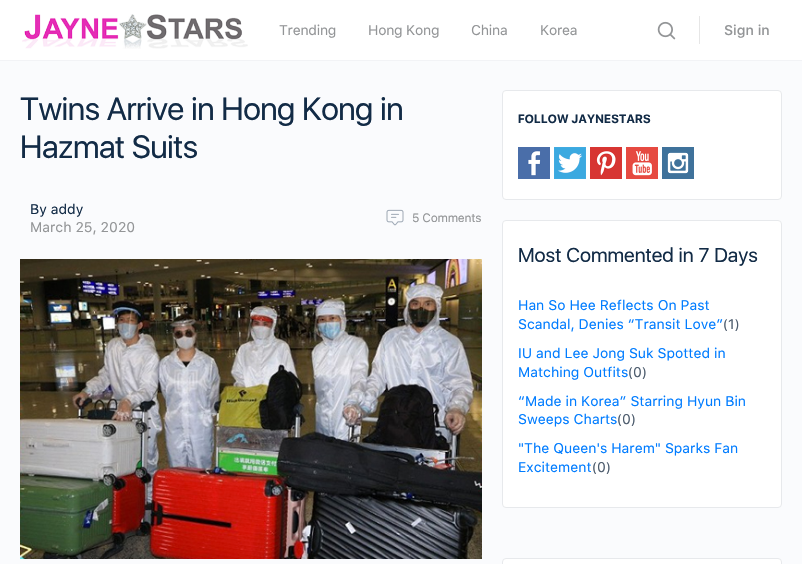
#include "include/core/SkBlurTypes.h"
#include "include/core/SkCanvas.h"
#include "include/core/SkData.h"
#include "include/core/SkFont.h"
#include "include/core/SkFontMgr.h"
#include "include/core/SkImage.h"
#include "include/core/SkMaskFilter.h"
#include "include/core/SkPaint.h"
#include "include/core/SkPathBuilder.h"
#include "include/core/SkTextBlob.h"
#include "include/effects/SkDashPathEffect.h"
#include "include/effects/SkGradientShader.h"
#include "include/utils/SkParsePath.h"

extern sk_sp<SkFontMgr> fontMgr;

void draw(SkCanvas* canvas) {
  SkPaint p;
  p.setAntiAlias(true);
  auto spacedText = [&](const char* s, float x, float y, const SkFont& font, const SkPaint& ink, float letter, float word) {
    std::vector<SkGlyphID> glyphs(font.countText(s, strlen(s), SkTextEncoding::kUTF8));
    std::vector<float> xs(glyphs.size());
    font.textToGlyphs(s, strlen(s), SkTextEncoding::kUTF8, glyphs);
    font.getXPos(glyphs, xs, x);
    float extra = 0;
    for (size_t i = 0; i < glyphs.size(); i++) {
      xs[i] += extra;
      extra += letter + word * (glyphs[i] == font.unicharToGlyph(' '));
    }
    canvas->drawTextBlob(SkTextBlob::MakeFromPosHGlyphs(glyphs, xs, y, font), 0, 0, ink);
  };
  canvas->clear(SkColorSetRGB(250, 251, 253));
  p.setColor(SkColorSetRGB(242, 243, 246));
  canvas->drawRect(SkRect::MakeLTRB(0, 60, 802, 61), p);
  p.setColor(SK_ColorWHITE);
  canvas->drawRect(SkRect::MakeLTRB(0, 0, 802, 60), p);
  canvas->drawImageRect(SkImages::DeferredFromEncodedData(SkData::MakeFromFileName("images/1.png")), SkRect::MakeLTRB(22, 14, 248, 49), SkSamplingOptions());
  canvas->drawImageRect(SkImages::DeferredFromEncodedData(SkData::MakeFromFileName("images/2.png")), SkRect::MakeLTRB(657, 21, 676, 40), SkSamplingOptions());
  p.setColor(SkColorSetRGB(230, 230, 230));
  canvas->drawRect(SkRect::MakeLTRB(699, 16, 700, 44), p);
  canvas->drawImageRect(SkImages::DeferredFromEncodedData(SkData::MakeFromFileName("images/3.png")), SkRect::MakeLTRB(386, 209, 404, 226), SkSamplingOptions());
  canvas->drawImageRect(SkImages::DeferredFromEncodedData(SkData::MakeFromFileName("images/4.png")), SkRect::MakeLTRB(20, 259, 482, 559), SkSamplingOptions());
  p.setColor(SK_ColorWHITE);
  canvas->drawRoundRect(SkRect::MakeLTRB(502.5f, 90.5f, 781.5f, 199.5f), 3.5f, 3.5f, p);
  p.setStyle(SkPaint::kStroke_Style);
  p.setStrokeWidth(1);
  p.setColor(SkColorSetRGB(231, 233, 236));
  canvas->drawRoundRect(SkRect::MakeLTRB(502.5f, 90.5f, 781.5f, 199.5f), 3.5f, 3.5f, p);
  canvas->drawImageRect(SkImages::DeferredFromEncodedData(SkData::MakeFromFileName("images/5.png")), SkRect::MakeLTRB(518, 147, 550, 179), SkSamplingOptions());
  canvas->drawImageRect(SkImages::DeferredFromEncodedData(SkData::MakeFromFileName("images/6.png")), SkRect::MakeLTRB(554, 147, 586, 179), SkSamplingOptions());
  canvas->drawImageRect(SkImages::DeferredFromEncodedData(SkData::MakeFromFileName("images/7.png")), SkRect::MakeLTRB(590, 147, 622, 179), SkSamplingOptions());
  canvas->drawImageRect(SkImages::DeferredFromEncodedData(SkData::MakeFromFileName("images/8.png")), SkRect::MakeLTRB(626, 147, 658, 179), SkSamplingOptions());
  canvas->drawImageRect(SkImages::DeferredFromEncodedData(SkData::MakeFromFileName("images/9.png")), SkRect::MakeLTRB(662, 147, 694, 179), SkSamplingOptions());
  p.setStyle(SkPaint::kFill_Style);
  p.setColor(SK_ColorWHITE);
  canvas->drawRoundRect(SkRect::MakeLTRB(502.5f, 220.5f, 781.5f, 507.5f), 3.5f, 3.5f, p);
  p.setStyle(SkPaint::kStroke_Style);
  p.setColor(SkColorSetRGB(231, 233, 236));
  canvas->drawRoundRect(SkRect::MakeLTRB(502.5f, 220.5f, 781.5f, 507.5f), 3.5f, 3.5f, p);
  p.setStyle(SkPaint::kFill_Style);
  p.setColor(SK_ColorWHITE);
  canvas->drawRoundRect(SkRect::MakeLTRB(502.5f, 558.5f, 781.5f, 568.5f), 3.5f, 3.5f, p);
  p.setStyle(SkPaint::kStroke_Style);
  p.setColor(SkColorSetRGB(231, 233, 236));
  canvas->drawRoundRect(SkRect::MakeLTRB(502.5f, 558.5f, 781.5f, 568.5f), 3.5f, 3.5f, p);
  SkFont font1(fontMgr->matchFamilyStyle("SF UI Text", SkFontStyle::Normal()), 14);
  font1.setSubpixel(true);
  p.setStyle(SkPaint::kFill_Style);
  p.setColor(SkColorSetRGB(147, 149, 151));
  spacedText("Trending", 279, 35, font1, p, -0.25f, 0);
  spacedText("Hong Kong", 368, 35, font1, p, -0.25f, 0);
  spacedText("China", 471, 35, font1, p, -0.25f, 0);
  spacedText("Korea", 540, 35, font1, p, -0.25f, 0);
  SkFont font2(fontMgr->matchFamilyStyle("SF UI Text", SkFontStyle(500, SkFontStyle::kNormal_Width, SkFontStyle::kUpright_Slant)), 14);
  font2.setSubpixel(true);
  canvas->drawString("Sign in", 724, 35, font2, p);
  SkFont font3(fontMgr->matchFamilyStyle("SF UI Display", SkFontStyle::Normal()), 32);
  font3.setSubpixel(true);
  p.setColor(SkColorSetRGB(18, 43, 70));
  spacedText("Twins Arrive in Hong Kong in", 20, 120, font3, p, -0.5f, 0);
  spacedText("Hazmat Suits", 20, 158, font3, p, -0.5f, 0);
  canvas->drawString("By addy", 30, 214, font1, p);
  p.setColor(SkColorSetRGB(147, 149, 151));
  canvas->drawString("March 25, 2020", 30, 232, font1, p);
  SkFont font4(fontMgr->matchFamilyStyle("SF UI Text", SkFontStyle::Normal()), 12);
  font4.setSubpixel(true);
  spacedText("5 Comments", 412, 222, font4, p, -0.25f, 0);
  SkFont font5(fontMgr->matchFamilyStyle("SF UI Display", SkFontStyle::Bold()), 12);
  font5.setSubpixel(true);
  p.setColor(SkColorSetRGB(18, 43, 70));
  spacedText("FOLLOW JAYNESTARS", 518, 123, font5, p, 0.25f, 0);
  SkFont font6(fontMgr->matchFamilyStyle("SF UI Display", SkFontStyle::Normal()), 20);
  font6.setSubpixel(true);
  canvas->drawString("Most Commented in 7 Days", 518, 262, font6, p);
  p.setColor(SkColorSetRGB(0, 124, 255));
  canvas->drawString("Han So Hee Reflects On Past", 518, 310, font1, p);
  canvas->drawString("Scandal, Denies “Transit Love”", 518, 329, font1, p);
  p.setColor(SkColorSetRGB(77, 92, 109));
  canvas->drawString("(1)", 723, 329, font1, p);
  p.setColor(SkColorSetRGB(0, 124, 255));
  canvas->drawString("IU and Lee Jong Suk Spotted in", 518, 358, font1, p);
  canvas->drawString("Matching Outfits", 518, 377, font1, p);
  p.setColor(SkColorSetRGB(77, 92, 109));
  canvas->drawString("(0)", 628, 377, font1, p);
  p.setColor(SkColorSetRGB(0, 124, 255));
  canvas->drawString("“Made in Korea” Starring Hyun Bin", 518, 406, font1, p);
  canvas->drawString("Sweeps Charts", 518, 424, font1, p);
  p.setColor(SkColorSetRGB(77, 92, 109));
  canvas->drawString("(0)", 617, 424, font1, p);
  p.setColor(SkColorSetRGB(0, 124, 255));
  canvas->drawString("\"The Queen's Harem\" Sparks Fan", 518, 453, font1, p);
  canvas->drawString("Excitement", 518, 472, font1, p);
  p.setColor(SkColorSetRGB(77, 92, 109));
  canvas->drawString("(0)", 592, 472, font1, p);
}
